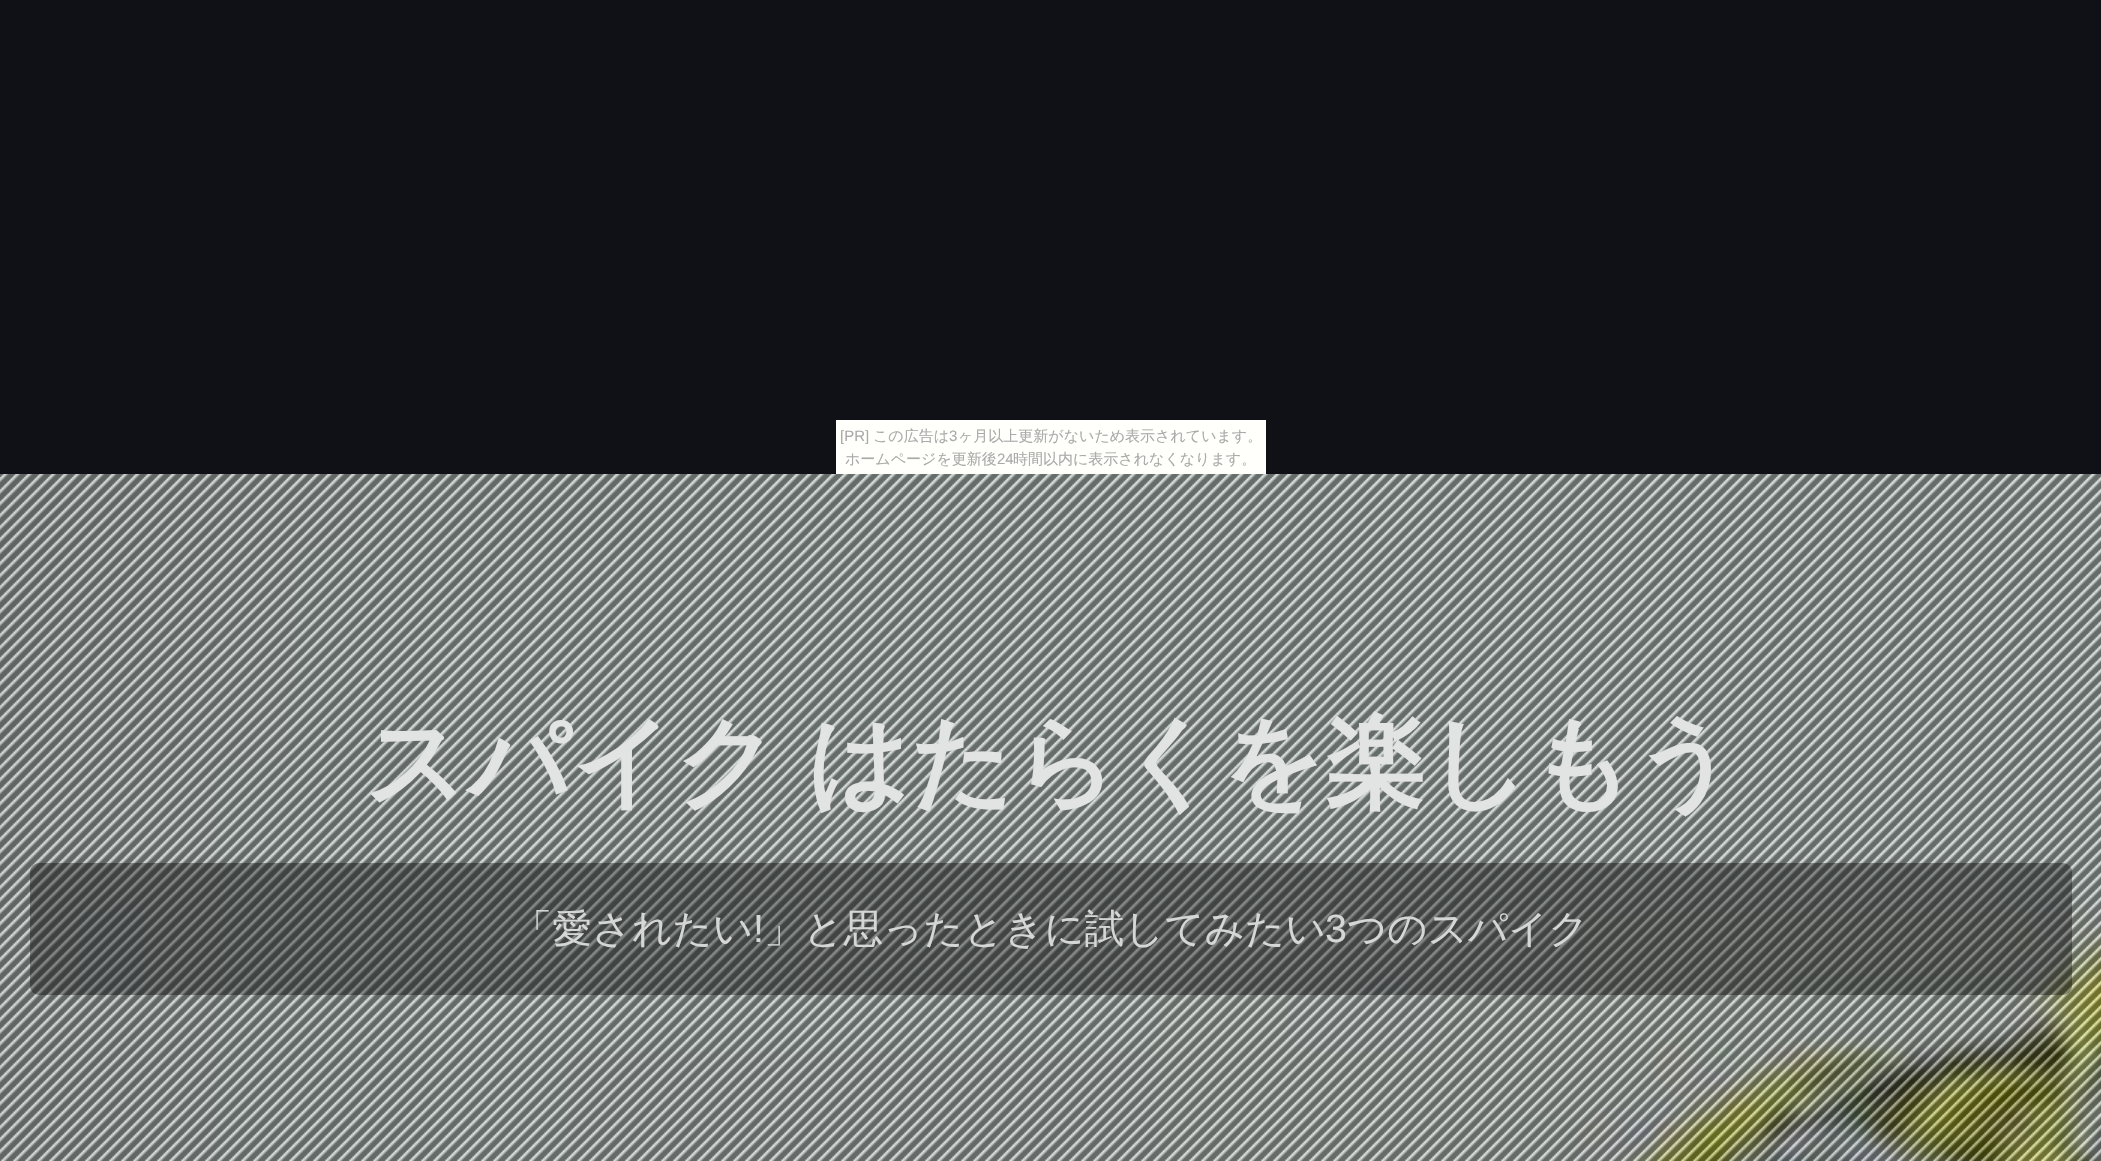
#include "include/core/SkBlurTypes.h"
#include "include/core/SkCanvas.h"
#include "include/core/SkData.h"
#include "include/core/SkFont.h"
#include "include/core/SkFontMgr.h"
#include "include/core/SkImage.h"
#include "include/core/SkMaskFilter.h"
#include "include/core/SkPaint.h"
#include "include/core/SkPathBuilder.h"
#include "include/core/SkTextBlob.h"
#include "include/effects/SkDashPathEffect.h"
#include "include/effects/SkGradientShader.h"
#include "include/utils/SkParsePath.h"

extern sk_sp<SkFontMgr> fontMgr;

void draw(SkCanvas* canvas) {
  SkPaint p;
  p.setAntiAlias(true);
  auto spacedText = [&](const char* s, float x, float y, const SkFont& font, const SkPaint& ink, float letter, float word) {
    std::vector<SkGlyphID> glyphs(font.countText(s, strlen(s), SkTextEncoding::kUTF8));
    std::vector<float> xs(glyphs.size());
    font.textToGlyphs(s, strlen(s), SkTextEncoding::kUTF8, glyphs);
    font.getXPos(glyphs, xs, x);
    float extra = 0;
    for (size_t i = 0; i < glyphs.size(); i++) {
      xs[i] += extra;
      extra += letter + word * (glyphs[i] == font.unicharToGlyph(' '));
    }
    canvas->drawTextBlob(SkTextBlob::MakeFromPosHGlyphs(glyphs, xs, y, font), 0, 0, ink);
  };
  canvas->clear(SkColorSetRGB(15, 17, 22));
  p.setColor(SkColorSetRGB(255, 255, 252));
  canvas->drawRect(SkRect::MakeLTRB(836, 420, 1266, 474), p);
  canvas->drawImageRect(SkImages::DeferredFromEncodedData(SkData::MakeFromFileName("images/1.png")), SkRect::MakeLTRB(0, 474, 2101, 1161), SkSamplingOptions());
  canvas->drawImageRect(SkImages::DeferredFromEncodedData(SkData::MakeFromFileName("images/2.png")), SkRect::MakeLTRB(0, 474, 2101, 1161), SkSamplingOptions());
  p.setColor(SkColorSetARGB(94, 0, 0, 0));
  canvas->drawRoundRect(SkRect::MakeLTRB(30, 863, 2072, 995), 9, 9, p);
  SkFont font1(fontMgr->matchFamilyStyle("Liberation Sans", SkFontStyle::Normal()), 15);
  font1.setSubpixel(true);
  p.setColor(SkColorSetRGB(170, 170, 170));
  canvas->drawString("[PR]", 840, 441, font1, p);
  SkFont font2(fontMgr->matchFamilyStyle("WenQuanYi Zen Hei", SkFontStyle(500, SkFontStyle::kNormal_Width, SkFontStyle::kUpright_Slant)), 15);
  font2.setSubpixel(true);
  canvas->drawString("この広告は", 873, 441, font2, p);
  canvas->drawString("3", 949, 441, font1, p);
  canvas->drawString("ヶ月以上更新がないため表示されています。", 958, 441, font2, p);
  canvas->drawString("ホームページを更新後", 845, 464, font2, p);
  canvas->drawString("24", 997, 464, font1, p);
  canvas->drawString("時間以内に表示されなくなります。", 1013, 464, font2, p);
  SkFont font3(fontMgr->matchFamilyStyle("WenQuanYi Zen Hei", SkFontStyle::Bold()), 101.25f);
  font3.setSubpixel(true);
  p.setColor(SkColorSetRGB(226, 227, 227));
  spacedText("スパイク はたらくを楽しもう", 364, 797, font3, p, 0, -2);
  SkFont font4(fontMgr->matchFamilyStyle("WenQuanYi Zen Hei", SkFontStyle(500, SkFontStyle::kNormal_Width, SkFontStyle::kUpright_Slant)), 39.4f);
  font4.setSubpixel(true);
  p.setColor(SkColorSetRGB(213, 214, 214));
  canvas->drawString("「愛されたい", 513, 942, font4, p);
  SkFont font5(fontMgr->matchFamilyStyle("Liberation Sans", SkFontStyle::Normal()), 39.4f);
  font5.setSubpixel(true);
  canvas->drawString("!", 753, 942, font5, p);
  canvas->drawString("」と思ったときに試してみたい", 764, 942, font4, p);
  canvas->drawString("3", 1325, 942, font5, p);
  canvas->drawString("つのスパイク", 1347, 942, font4, p);
}
